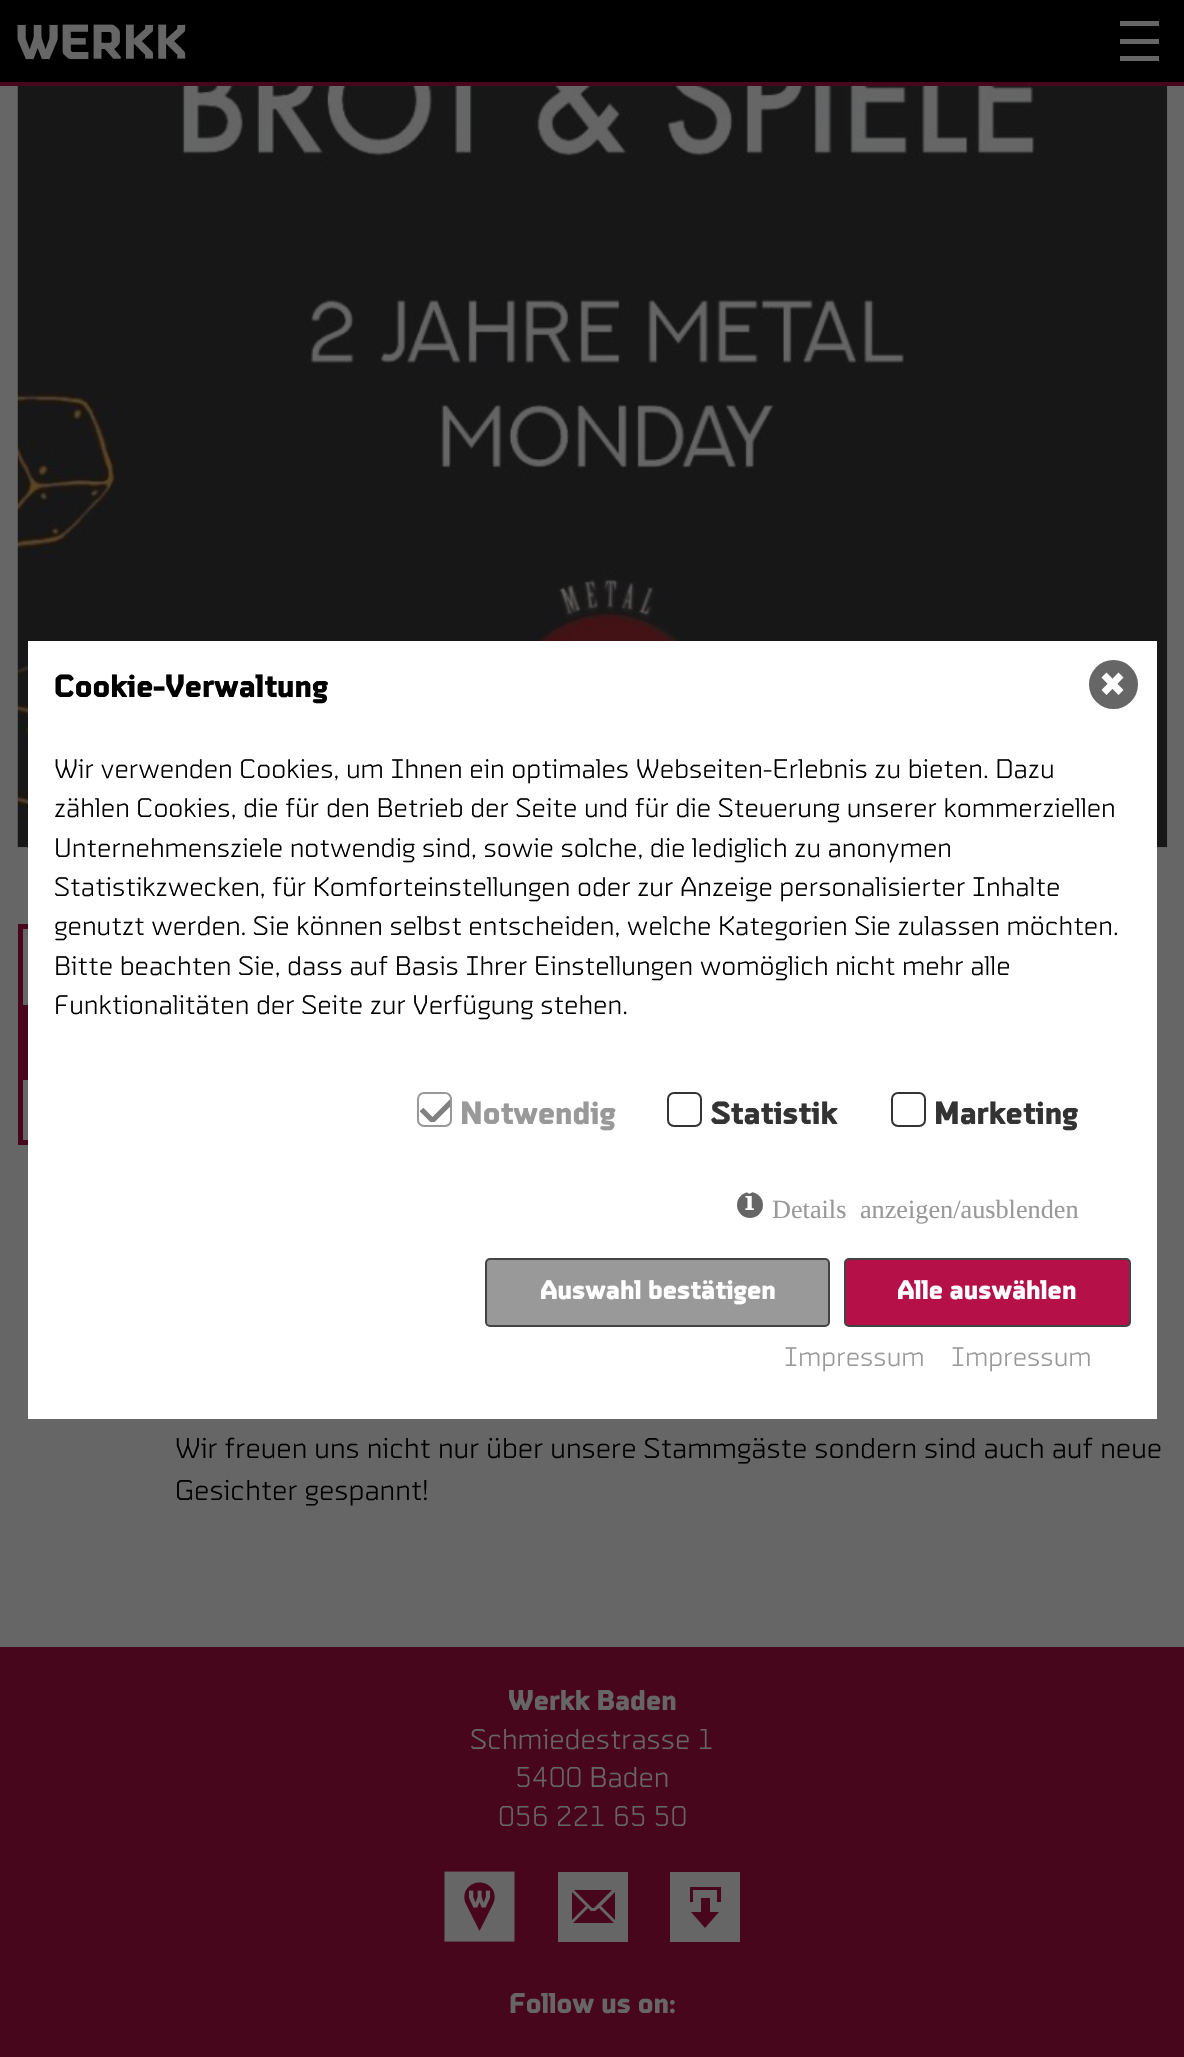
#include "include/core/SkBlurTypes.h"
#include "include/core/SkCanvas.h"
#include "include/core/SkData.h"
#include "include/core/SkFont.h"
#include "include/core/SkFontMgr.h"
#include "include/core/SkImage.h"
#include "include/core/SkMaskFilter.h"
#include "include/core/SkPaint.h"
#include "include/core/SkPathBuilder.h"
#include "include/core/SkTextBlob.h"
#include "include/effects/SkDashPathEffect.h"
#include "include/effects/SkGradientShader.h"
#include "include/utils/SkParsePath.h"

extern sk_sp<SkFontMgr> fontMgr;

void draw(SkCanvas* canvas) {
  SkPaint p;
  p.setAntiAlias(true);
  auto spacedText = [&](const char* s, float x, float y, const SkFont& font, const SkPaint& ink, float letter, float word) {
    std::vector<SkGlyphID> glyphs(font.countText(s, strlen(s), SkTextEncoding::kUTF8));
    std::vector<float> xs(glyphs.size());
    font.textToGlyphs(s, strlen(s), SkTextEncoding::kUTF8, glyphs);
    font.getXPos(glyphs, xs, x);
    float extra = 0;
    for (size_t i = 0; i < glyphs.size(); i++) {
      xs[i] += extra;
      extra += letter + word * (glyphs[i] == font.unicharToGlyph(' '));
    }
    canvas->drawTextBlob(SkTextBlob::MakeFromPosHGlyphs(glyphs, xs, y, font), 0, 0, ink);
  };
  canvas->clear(SkColorSetRGB(102, 102, 102));
  p.setColor(SK_ColorBLACK);
  canvas->drawRect(SkRect::MakeLTRB(0, 0, 1184, 82), p);
  p.setColor(SkColorSetRGB(102, 102, 102));
  canvas->drawRect(SkRect::MakeLTRB(1120, 21, 1159, 26), p);
  canvas->drawRect(SkRect::MakeLTRB(1120, 39, 1159, 44), p);
  canvas->drawRect(SkRect::MakeLTRB(1120, 56, 1159, 61), p);
  p.setColor(SkColorSetRGB(72, 6, 28));
  canvas->drawRect(SkRect::MakeLTRB(0, 82, 1184, 86), p);
  canvas->drawImageRect(SkImages::DeferredFromEncodedData(SkData::MakeFromFileName("images/1.png")), SkRect::MakeLTRB(17, 24, 186, 60), SkSamplingOptions());
  canvas->drawImageRect(SkImages::DeferredFromEncodedData(SkData::MakeFromFileName("images/2.png")), SkRect::MakeLTRB(17, 86, 1168, 848), SkSamplingOptions());
  p.setStyle(SkPaint::kStroke_Style);
  p.setStrokeWidth(5);
  canvas->drawRect(SkRect::MakeLTRB(20.5f, 926.5f, 137.5f, 1142.5f), p);
  p.setStyle(SkPaint::kFill_Style);
  p.setColor(SK_ColorWHITE);
  canvas->drawRect(SkRect::MakeLTRB(28, 641, 1157, 1419), p);
  p.setColor(SkColorSetRGB(102, 102, 102));
  canvas->drawCircle(1113.5f, 684.5f, 24.5f, p);
  p.setColor(SK_ColorWHITE);
  canvas->drawPath(SkPathBuilder().moveTo(1118.5f, 672.5f).lineTo(1123.5f, 677.5f).lineTo(1106.5f, 695).lineTo(1101.5f, 690).close().detach(), p);
  canvas->drawPath(SkPathBuilder().moveTo(1101.5f, 677.5f).lineTo(1106.5f, 672.5f).lineTo(1123.5f, 690).lineTo(1118.5f, 695).close().detach(), p);
  canvas->save();
  canvas->clipRect(SkRect::MakeLTRB(418, 1087, 453, 1122));
  canvas->clipPath(SkPathBuilder().moveTo(424, 1092).lineTo(445, 1092).cubicTo(449, 1092, 452, 1095, 452, 1099).lineTo(452, 1120).cubicTo(452, 1124, 449, 1127, 445, 1127).lineTo(424, 1127).cubicTo(420, 1127, 417, 1124, 417, 1120).lineTo(417, 1099).cubicTo(417, 1095, 420, 1092, 424, 1092).close().detach(), true);
  p.setStyle(SkPaint::kStroke_Style);
  p.setStrokeWidth(5.2f);
  p.setColor(SkColorSetRGB(128, 128, 128));
  canvas->drawPath(SkPathBuilder().moveTo(421.5f, 1109.5f).lineTo(432.5f, 1120.5f).lineTo(458, 1095).detach(), p);
  canvas->restore();
  p.setStrokeWidth(2);
  p.setColor(SkColorSetRGB(153, 153, 153));
  canvas->drawRoundRect(SkRect::MakeLTRB(418, 1093, 451, 1126), 6, 6, p);
  p.setColor(SkColorSetRGB(51, 51, 51));
  canvas->drawRoundRect(SkRect::MakeLTRB(668, 1093, 701, 1126), 6, 6, p);
  canvas->drawRoundRect(SkRect::MakeLTRB(892, 1093, 925, 1126), 6, 6, p);
  p.setStyle(SkPaint::kFill_Style);
  p.setColor(SkColorSetRGB(102, 102, 102));
  canvas->drawCircle(750, 1205, 13, p);
  p.setColor(SkColorSetRGB(153, 153, 153));
  canvas->drawRoundRect(SkRect::MakeLTRB(486, 1259, 829, 1326), 4, 4, p);
  p.setStyle(SkPaint::kStroke_Style);
  p.setColor(SkColorSetRGB(68, 68, 68));
  canvas->drawRoundRect(SkRect::MakeLTRB(486, 1259, 829, 1326), 4, 4, p);
  p.setStyle(SkPaint::kFill_Style);
  p.setColor(SkColorSetRGB(181, 16, 71));
  canvas->drawRoundRect(SkRect::MakeLTRB(845, 1259, 1130, 1326), 4, 4, p);
  p.setStyle(SkPaint::kStroke_Style);
  p.setColor(SkColorSetRGB(68, 68, 68));
  canvas->drawRoundRect(SkRect::MakeLTRB(845, 1259, 1130, 1326), 4, 4, p);
  p.setStyle(SkPaint::kFill_Style);
  p.setColor(SkColorSetRGB(72, 6, 28));
  canvas->drawRect(SkRect::MakeLTRB(23, 1005, 28, 1080), p);
  canvas->drawRect(SkRect::MakeLTRB(0, 1647, 1184, 2057), p);
  canvas->drawImageRect(SkImages::DeferredFromEncodedData(SkData::MakeFromFileName("images/3.png")), SkRect::MakeLTRB(444, 1871, 515, 1942), SkSamplingOptions());
  p.setColor(SkColorSetRGB(102, 102, 102));
  canvas->drawPath(SkPathBuilder().moveTo(558, 1872).lineTo(558, 1942).lineTo(628, 1942).lineTo(628, 1872).close().moveTo(612, 1890).lineTo(594, 1908).lineTo(592, 1908).lineTo(574, 1890).close().moveTo(572, 1892).lineTo(586, 1906).lineTo(572, 1920).close().moveTo(573, 1923).lineTo(588, 1908).lineTo(591, 1911).lineTo(595, 1911).lineTo(599, 1908).lineTo(614, 1923).close().moveTo(615, 1920).lineTo(601, 1906).lineTo(615, 1892).close().detach(), p);
  canvas->drawPath(SkPathBuilder().moveTo(670, 1872).lineTo(670, 1942).lineTo(740, 1942).lineTo(740, 1872).close().moveTo(705, 1928).lineTo(691, 1912).lineTo(701, 1912).lineTo(701, 1898).lineTo(710, 1898).lineTo(710, 1912).lineTo(719, 1912).close().moveTo(721, 1902).lineTo(717, 1902).lineTo(717, 1890).lineTo(693, 1890).lineTo(693, 1902).lineTo(690, 1902).lineTo(690, 1887).lineTo(721, 1887).close().detach(), p);
  SkFont font1(fontMgr->matchFamilyStyle("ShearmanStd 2", SkFontStyle::Normal()), 31.5f);
  font1.setSubpixel(true);
  p.setColor(SK_ColorBLACK);
  canvas->drawString("Cookie-Verwaltung", 54, 697, font1, p);
  SkFont font2(fontMgr->matchFamilyStyle("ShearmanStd", SkFontStyle::Normal()), 26.25f);
  font2.setSubpixel(true);
  canvas->drawString("Wir verwenden Cookies, um Ihnen ein optimales Webseiten-Erlebnis zu bieten. Dazu", 54, 778, font2, p);
  canvas->drawString("zählen Cookies, die für den Betrieb der Seite und für die Steuerung unserer kommerziellen", 54, 817, font2, p);
  canvas->drawString("Unternehmensziele notwendig sind, sowie solche, die lediglich zu anonymen", 54, 857, font2, p);
  canvas->drawString("Statistikzwecken, für Komforteinstellungen oder zur Anzeige personalisierter Inhalte", 54, 896, font2, p);
  canvas->drawString("genutzt werden. Sie können selbst entscheiden, welche Kategorien Sie zulassen möchten.", 54, 935, font2, p);
  canvas->drawString("Bitte beachten Sie, dass auf Basis Ihrer Einstellungen womöglich nicht mehr alle", 54, 975, font2, p);
  canvas->drawString("Funktionalitäten der Seite zur Verfügung stehen.", 54, 1014, font2, p);
  p.setColor(SkColorSetRGB(153, 153, 153));
  canvas->drawString("Notwendig", 460, 1124, font1, p);
  p.setColor(SkColorSetRGB(51, 51, 51));
  canvas->drawString("Statistik", 711, 1124, font1, p);
  canvas->drawString("Marketing", 934, 1124, font1, p);
  SkFont font3(fontMgr->matchFamilyStyle("Noto Serif", SkFontStyle::Bold()), 26.25f);
  font3.setSubpixel(true);
  p.setColor(SK_ColorWHITE);
  canvas->drawString("i", 745, 1210, font3, p);
  SkFont font4(fontMgr->matchFamilyStyle("Liberation Serif", SkFontStyle::Normal()), 26.25f);
  font4.setSubpixel(true);
  p.setColor(SkColorSetRGB(153, 153, 153));
  spacedText("Details anzeigen/ausblenden", 772, 1218, font4, p, 0, 7);
  SkFont font5(fontMgr->matchFamilyStyle("ShearmanStd 2", SkFontStyle::Normal()), 26.25f);
  font5.setSubpixel(true);
  p.setColor(SK_ColorWHITE);
  canvas->drawString("Auswahl bestätigen", 540, 1299, font5, p);
  canvas->drawString("Alle auswählen", 897, 1299, font5, p);
  p.setColor(SkColorSetRGB(153, 153, 153));
  canvas->drawString("Impressum", 784, 1366, font2, p);
  canvas->drawString("Impressum", 951, 1366, font2, p);
  SkFont font6(fontMgr->matchFamilyStyle("ShearmanStd", SkFontStyle::Normal()), 28);
  font6.setSubpixel(true);
  p.setColor(SK_ColorBLACK);
  canvas->drawString("Wir freuen uns nicht nur über unsere Stammgäste sondern sind auch auf neue", 175, 1458, font6, p);
  canvas->drawString("Gesichter gespannt!", 175, 1500, font6, p);
  SkFont font7(fontMgr->matchFamilyStyle("ShearmanStd 2", SkFontStyle::Normal()), 28);
  font7.setSubpixel(true);
  p.setColor(SkColorSetRGB(102, 102, 102));
  canvas->drawString("Werkk Baden", 508, 1710, font7, p);
  canvas->drawString("Schmiedestrasse 1", 470, 1749, font6, p);
  canvas->drawString("5400 Baden", 515, 1787, font6, p);
  canvas->drawString("056 221 65 50", 498, 1826, font6, p);
  canvas->drawString("Follow us on:", 509, 2013, font7, p);
}
